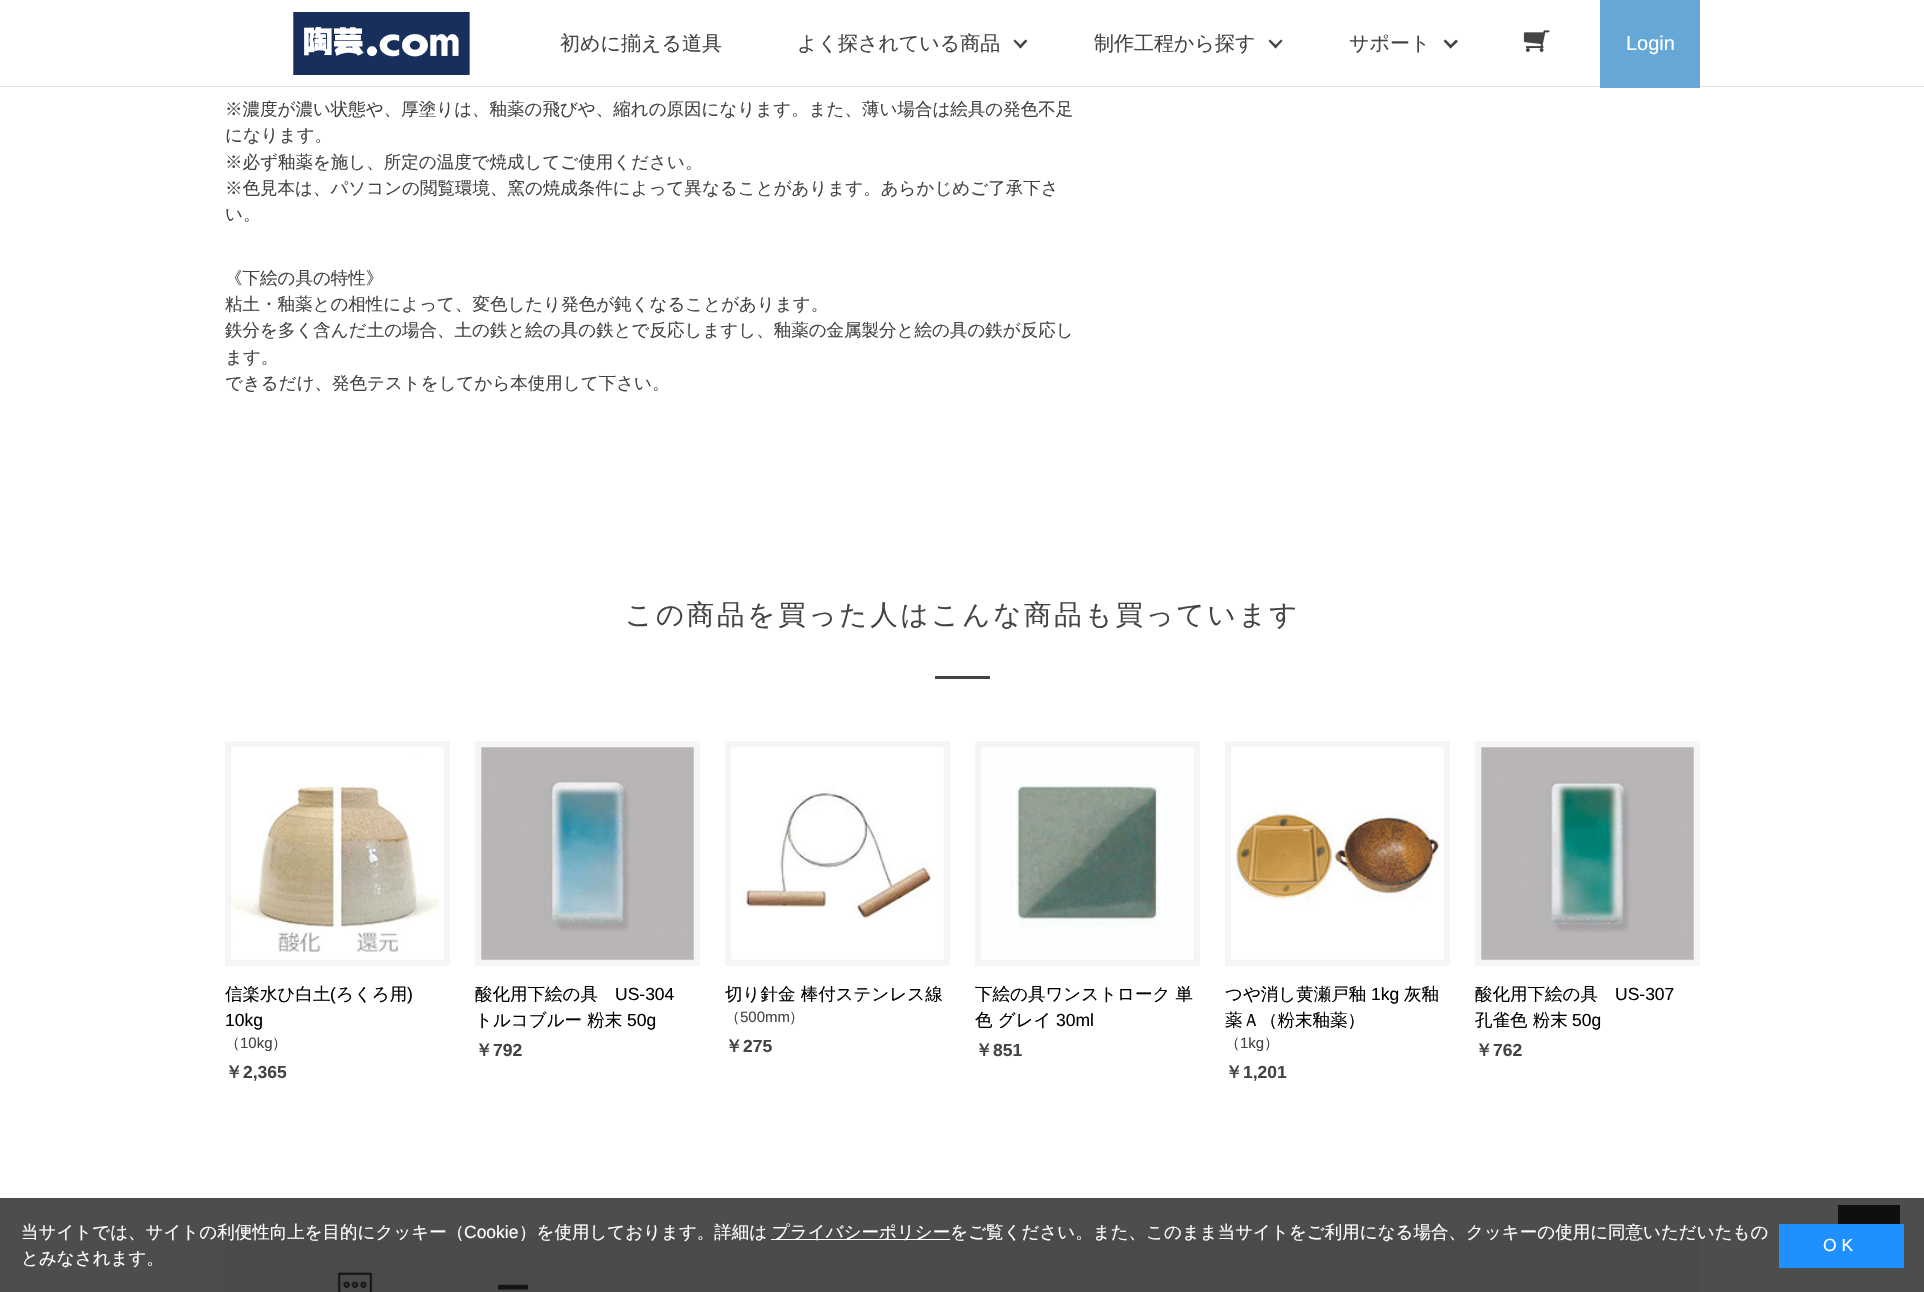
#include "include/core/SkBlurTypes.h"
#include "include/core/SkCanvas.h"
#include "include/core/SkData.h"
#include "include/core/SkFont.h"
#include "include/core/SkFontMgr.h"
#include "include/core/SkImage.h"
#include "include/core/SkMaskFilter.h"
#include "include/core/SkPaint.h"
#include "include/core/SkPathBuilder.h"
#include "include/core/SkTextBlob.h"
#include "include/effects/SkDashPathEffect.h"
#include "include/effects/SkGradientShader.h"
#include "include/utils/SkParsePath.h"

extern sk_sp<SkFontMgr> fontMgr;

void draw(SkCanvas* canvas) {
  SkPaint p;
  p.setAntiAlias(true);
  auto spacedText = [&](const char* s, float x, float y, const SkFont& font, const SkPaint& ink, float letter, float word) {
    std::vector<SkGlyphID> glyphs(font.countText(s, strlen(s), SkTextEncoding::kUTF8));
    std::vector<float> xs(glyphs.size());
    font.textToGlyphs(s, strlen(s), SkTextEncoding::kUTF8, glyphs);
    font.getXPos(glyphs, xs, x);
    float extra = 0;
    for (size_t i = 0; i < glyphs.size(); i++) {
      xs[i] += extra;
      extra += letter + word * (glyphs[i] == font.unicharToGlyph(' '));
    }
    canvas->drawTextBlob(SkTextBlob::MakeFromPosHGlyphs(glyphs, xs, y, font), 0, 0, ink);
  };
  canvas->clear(SK_ColorWHITE);
  p.setColor(SkColorSetRGB(77, 77, 77));
  canvas->drawRect(SkRect::MakeLTRB(0, 1198, 1924, 1292), p);
  canvas->drawImageRect(SkImages::DeferredFromEncodedData(SkData::MakeFromFileName("images/1.png")), SkRect::MakeLTRB(293, 12, 470, 75), SkSamplingOptions());
  p.setColor(SkColorSetRGB(68, 68, 68));
  canvas->drawPath(SkPathBuilder().moveTo(1025.5f, 39.5f).lineTo(1027.5f, 41).lineTo(1020.5f, 48.5f).lineTo(1018.5f, 46.5f).close().detach(), p);
  canvas->drawPath(SkPathBuilder().moveTo(1015, 39.5f).lineTo(1022, 46.5f).lineTo(1020.5f, 48.5f).lineTo(1013.5f, 41).close().detach(), p);
  canvas->drawPath(SkPathBuilder().moveTo(1281, 39.5f).lineTo(1282.5f, 41).lineTo(1275.5f, 48.5f).lineTo(1274, 46.5f).close().detach(), p);
  canvas->drawPath(SkPathBuilder().moveTo(1270, 39.5f).lineTo(1277.5f, 46.5f).lineTo(1275.5f, 48.5f).lineTo(1268.5f, 41).close().detach(), p);
  canvas->drawPath(SkPathBuilder().moveTo(1456, 39.5f).lineTo(1458, 41.5f).lineTo(1450.5f, 48.5f).lineTo(1449, 46.5f).close().detach(), p);
  canvas->drawPath(SkPathBuilder().moveTo(1445.5f, 39.5f).lineTo(1452.5f, 46.5f).lineTo(1450.5f, 48.5f).lineTo(1443.5f, 41).close().detach(), p);
  canvas->drawImageRect(SkImages::DeferredFromEncodedData(SkData::MakeFromFileName("images/2.png")), SkRect::MakeLTRB(1523, 30, 1550, 52), SkSamplingOptions());
  p.setColor(SkColorSetRGB(228, 228, 228));
  canvas->drawRect(SkRect::MakeLTRB(0, 86, 1924, 87), p);
  p.setColor(SkColorSetRGB(101, 167, 214));
  canvas->drawRect(SkRect::MakeLTRB(1600, 0, 1700, 88), p);
  p.setColor(SkColorSetRGB(68, 68, 68));
  canvas->drawRect(SkRect::MakeLTRB(935, 676, 990, 679), p);
  p.setColor(SkColorSetRGB(245, 245, 245));
  canvas->drawRect(SkRect::MakeLTRB(225, 741, 450, 966), p);
  canvas->drawImageRect(SkImages::DeferredFromEncodedData(SkData::MakeFromFileName("images/3.png")), SkRect::MakeLTRB(231, 747, 444, 960), SkSamplingOptions());
  canvas->drawRect(SkRect::MakeLTRB(475, 741, 700, 966), p);
  canvas->drawImageRect(SkImages::DeferredFromEncodedData(SkData::MakeFromFileName("images/4.png")), SkRect::MakeLTRB(481, 747, 694, 960), SkSamplingOptions());
  canvas->drawRect(SkRect::MakeLTRB(725, 741, 950, 966), p);
  canvas->drawImageRect(SkImages::DeferredFromEncodedData(SkData::MakeFromFileName("images/5.png")), SkRect::MakeLTRB(731, 747, 944, 960), SkSamplingOptions());
  canvas->drawRect(SkRect::MakeLTRB(975, 741, 1200, 966), p);
  canvas->drawImageRect(SkImages::DeferredFromEncodedData(SkData::MakeFromFileName("images/6.png")), SkRect::MakeLTRB(981, 747, 1194, 960), SkSamplingOptions());
  canvas->drawRect(SkRect::MakeLTRB(1225, 741, 1450, 966), p);
  canvas->drawImageRect(SkImages::DeferredFromEncodedData(SkData::MakeFromFileName("images/7.png")), SkRect::MakeLTRB(1231, 747, 1444, 960), SkSamplingOptions());
  canvas->drawRect(SkRect::MakeLTRB(1475, 741, 1700, 966), p);
  canvas->drawImageRect(SkImages::DeferredFromEncodedData(SkData::MakeFromFileName("images/8.png")), SkRect::MakeLTRB(1481, 747, 1694, 960), SkSamplingOptions());
  p.setColor(SkColorSetRGB(74, 74, 74));
  canvas->drawRect(SkRect::MakeLTRB(225, 1236, 1700, 1292), p);
  canvas->drawImageRect(SkImages::DeferredFromEncodedData(SkData::MakeFromFileName("images/9.png")), SkRect::MakeLTRB(337, 1272, 373, 1292), SkSamplingOptions());
  p.setColor(SkColorSetRGB(15, 15, 15));
  canvas->drawRect(SkRect::MakeLTRB(1838, 1205, 1900, 1224), p);
  p.setColor(SK_ColorWHITE);
  canvas->drawRect(SkRect::MakeLTRB(771, 1239, 950, 1240), p);
  p.setColor(SkColorSetRGB(30, 144, 255));
  canvas->drawRect(SkRect::MakeLTRB(1779, 1224, 1904, 1268), p);
  SkFont font1(fontMgr->matchFamilyStyle("WenQuanYi Zen Hei", SkFontStyle(500, SkFontStyle::kNormal_Width, SkFontStyle::kUpright_Slant)), 20);
  font1.setSubpixel(true);
  p.setColor(SkColorSetRGB(68, 68, 68));
  canvas->drawString("初めに揃える道具", 560, 50, font1, p);
  canvas->drawString("よく探されている商品", 797, 50, font1, p);
  canvas->drawString("制作工程から探す", 1094, 50, font1, p);
  canvas->drawString("サポート", 1349, 50, font1, p);
  SkFont font2(fontMgr->matchFamilyStyle("Liberation Sans", SkFontStyle::Normal()), 20);
  font2.setSubpixel(true);
  p.setColor(SK_ColorWHITE);
  canvas->drawString("Login", 1626, 50, font2, p);
  SkFont font3(fontMgr->matchFamilyStyle("WenQuanYi Zen Hei", SkFontStyle(500, SkFontStyle::kNormal_Width, SkFontStyle::kUpright_Slant)), 17.5f);
  font3.setSubpixel(true);
  p.setColor(SkColorSetRGB(68, 68, 68));
  canvas->drawString("※濃度が濃い状態や、厚塗りは、釉薬の飛びや、縮れの原因になります。また、薄い場合は絵具の発色不足", 225, 115, font3, p);
  canvas->drawString("になります。", 225, 141, font3, p);
  canvas->drawString("※必ず釉薬を施し、所定の温度で焼成してご使用ください。", 225, 168, font3, p);
  canvas->drawString("※色見本は、パソコンの閲覧環境、窯の焼成条件によって異なることがあります。あらかじめご了承下さ", 225, 194, font3, p);
  canvas->drawString("い。", 225, 220, font3, p);
  canvas->drawString("《下絵の具の特性》", 225, 284, font3, p);
  canvas->drawString("粘土・釉薬との相性によって、変色したり発色が鈍くなることがあります。", 225, 310, font3, p);
  canvas->drawString("鉄分を多く含んだ土の場合、土の鉄と絵の具の鉄とで反応しますし、釉薬の金属製分と絵の具の鉄が反応し", 225, 336, font3, p);
  canvas->drawString("ます。", 225, 363, font3, p);
  canvas->drawString("できるだけ、発色テストをしてから本使用して下さい。", 225, 389, font3, p);
  SkFont font4(fontMgr->matchFamilyStyle("WenQuanYi Zen Hei", SkFontStyle(500, SkFontStyle::kNormal_Width, SkFontStyle::kUpright_Slant)), 27.5f);
  font4.setSubpixel(true);
  spacedText("この商品を買った人はこんな商品も買っています", 625, 624, font4, p, 2.75f, 0);
  p.setColor(SK_ColorBLACK);
  canvas->drawString("信楽水ひ白土", 225, 1000, font3, p);
  SkFont font5(fontMgr->matchFamilyStyle("Liberation Sans", SkFontStyle::Normal()), 17.5f);
  font5.setSubpixel(true);
  canvas->drawString("(", 330, 1000, font5, p);
  canvas->drawString("ろくろ用", 336, 1000, font3, p);
  canvas->drawString(")", 407, 1000, font5, p);
  canvas->drawString("10kg", 225, 1026, font5, p);
  SkFont font6(fontMgr->matchFamilyStyle("WenQuanYi Zen Hei", SkFontStyle(500, SkFontStyle::kNormal_Width, SkFontStyle::kUpright_Slant)), 15);
  font6.setSubpixel(true);
  p.setColor(SkColorSetRGB(68, 68, 68));
  canvas->drawString("（", 225, 1048, font6, p);
  SkFont font7(fontMgr->matchFamilyStyle("Liberation Sans", SkFontStyle::Normal()), 15);
  font7.setSubpixel(true);
  canvas->drawString("10kg", 240, 1048, font7, p);
  canvas->drawString("）", 272, 1048, font6, p);
  SkFont font8(fontMgr->matchFamilyStyle("WenQuanYi Zen Hei", SkFontStyle::Bold()), 17.5f);
  font8.setSubpixel(true);
  canvas->drawString("￥", 225, 1078, font8, p);
  SkFont font9(fontMgr->matchFamilyStyle("Liberation Sans", SkFontStyle::Bold()), 17.5f);
  font9.setSubpixel(true);
  canvas->drawString("2,365", 243, 1078, font9, p);
  p.setColor(SK_ColorBLACK);
  canvas->drawString("酸化用下絵の具", 475, 1000, font3, p);
  canvas->drawString("US-304", 615, 1000, font5, p);
  canvas->drawString("トルコブルー 粉末", 475, 1026, font3, p);
  canvas->drawString("50g", 627, 1026, font5, p);
  p.setColor(SkColorSetRGB(68, 68, 68));
  canvas->drawString("￥", 475, 1056, font8, p);
  canvas->drawString("792", 493, 1056, font9, p);
  p.setColor(SK_ColorBLACK);
  canvas->drawString("切り針金 棒付ステンレス線", 725, 1000, font3, p);
  p.setColor(SkColorSetRGB(68, 68, 68));
  canvas->drawString("（", 725, 1022, font6, p);
  canvas->drawString("500mm", 740, 1022, font7, p);
  canvas->drawString("）", 789, 1022, font6, p);
  canvas->drawString("￥", 725, 1052, font8, p);
  canvas->drawString("275", 743, 1052, font9, p);
  p.setColor(SK_ColorBLACK);
  canvas->drawString("下絵の具ワンストローク 単", 975, 1000, font3, p);
  canvas->drawString("色 グレイ", 975, 1026, font3, p);
  canvas->drawString("30ml", 1056, 1026, font5, p);
  p.setColor(SkColorSetRGB(68, 68, 68));
  canvas->drawString("￥", 975, 1056, font8, p);
  canvas->drawString("851", 993, 1056, font9, p);
  p.setColor(SK_ColorBLACK);
  canvas->drawString("つや消し黄瀬戸釉", 1225, 1000, font3, p);
  canvas->drawString("1kg", 1371, 1000, font5, p);
  canvas->drawString("灰釉", 1404, 1000, font3, p);
  canvas->drawString("薬Ａ（粉末釉薬）", 1225, 1026, font3, p);
  p.setColor(SkColorSetRGB(68, 68, 68));
  canvas->drawString("（", 1225, 1048, font6, p);
  canvas->drawString("1kg", 1240, 1048, font7, p);
  canvas->drawString("）", 1264, 1048, font6, p);
  canvas->drawString("￥", 1225, 1078, font8, p);
  canvas->drawString("1,201", 1243, 1078, font9, p);
  p.setColor(SK_ColorBLACK);
  canvas->drawString("酸化用下絵の具", 1475, 1000, font3, p);
  canvas->drawString("US-307", 1615, 1000, font5, p);
  canvas->drawString("孔雀色 粉末", 1475, 1026, font3, p);
  canvas->drawString("50g", 1572, 1026, font5, p);
  p.setColor(SkColorSetRGB(68, 68, 68));
  canvas->drawString("￥", 1475, 1056, font8, p);
  canvas->drawString("762", 1493, 1056, font9, p);
  SkFont font10(fontMgr->matchFamilyStyle("WenQuanYi Zen Hei", SkFontStyle::Bold()), 35);
  font10.setSubpixel(true);
  p.setColor(SkColorSetRGB(20, 20, 20));
  canvas->drawString("ー", 495, 1301, font10, p);
  p.setColor(SK_ColorWHITE);
  canvas->drawString("当サイトでは、サイトの利便性向上を目的にクッキー（", 21, 1238, font3, p);
  canvas->drawString("Cookie", 464, 1238, font5, p);
  canvas->drawString("）を使用しております。詳細は", 519, 1238, font3, p);
  canvas->drawString("プライバシーポリシーをご覧ください。また、このまま当サイトをご利用になる場合、クッキーの使用に同意いただいたもの", 772, 1238, font3, p);
  canvas->drawString("とみなされます。", 21, 1264, font3, p);
  canvas->drawString("O K", 1823, 1251, font5, p);
}
